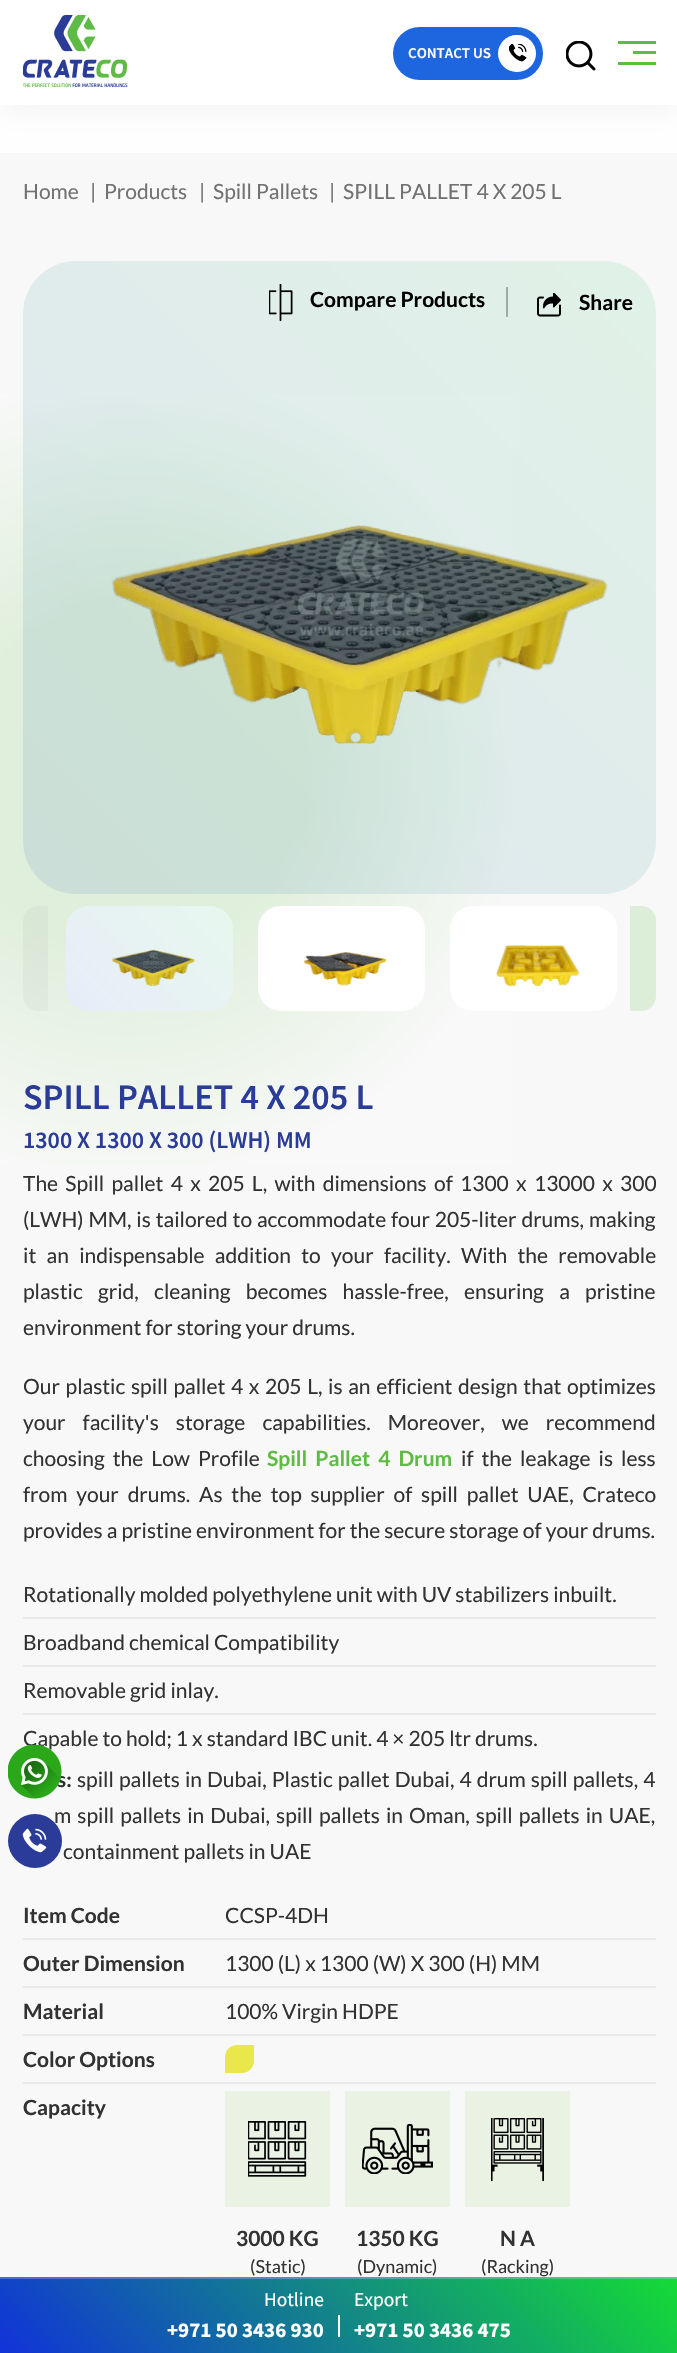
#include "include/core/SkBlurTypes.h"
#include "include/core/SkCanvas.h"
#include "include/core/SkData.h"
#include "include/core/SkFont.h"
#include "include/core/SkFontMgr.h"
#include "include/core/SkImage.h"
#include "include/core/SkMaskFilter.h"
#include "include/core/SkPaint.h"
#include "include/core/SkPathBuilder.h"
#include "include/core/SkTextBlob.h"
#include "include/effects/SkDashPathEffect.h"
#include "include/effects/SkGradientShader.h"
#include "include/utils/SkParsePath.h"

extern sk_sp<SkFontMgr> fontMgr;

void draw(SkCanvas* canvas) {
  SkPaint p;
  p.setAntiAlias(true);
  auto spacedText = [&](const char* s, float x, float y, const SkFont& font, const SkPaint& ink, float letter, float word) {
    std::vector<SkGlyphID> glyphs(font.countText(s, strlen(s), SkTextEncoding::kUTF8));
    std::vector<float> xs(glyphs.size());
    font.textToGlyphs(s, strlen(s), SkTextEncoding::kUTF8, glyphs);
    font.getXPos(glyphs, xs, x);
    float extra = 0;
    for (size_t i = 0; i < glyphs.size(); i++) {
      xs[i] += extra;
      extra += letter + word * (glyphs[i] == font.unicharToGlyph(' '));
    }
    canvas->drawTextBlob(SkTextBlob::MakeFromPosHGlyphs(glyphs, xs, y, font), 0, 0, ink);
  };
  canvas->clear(SK_ColorWHITE);
  p.setColor(SkColorSetRGB(248, 248, 248));
  canvas->drawRect(SkRect::MakeLTRB(0, 153, 677, 2277), p);
  p.setColor(SkColorSetARGB(13, 0, 0, 0));
  p.setMaskFilter(SkMaskFilter::MakeBlur(kNormal_SkBlurStyle, 15));
  canvas->drawRect(SkRect::MakeLTRB(0, 5, 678, 110), p);
  p.setMaskFilter(nullptr);
  p.setColor(SK_ColorWHITE);
  canvas->drawRect(SkRect::MakeLTRB(0, 0, 677, 105), p);
  canvas->drawImageRect(SkImages::DeferredFromEncodedData(SkData::MakeFromFileName("images/1.png")), SkRect::MakeLTRB(23, 15, 128, 88), SkSamplingOptions());
  p.setColor(SkColorSetRGB(29, 102, 223));
  canvas->drawRoundRect(SkRect::MakeLTRB(393, 27, 543, 80), 26.5f, 26.5f, p);
  p.setColor(SK_ColorWHITE);
  canvas->drawRoundRect(SkRect::MakeLTRB(498, 35, 536, 72), 18.5f, 18.5f, p);
  canvas->drawImageRect(SkImages::DeferredFromEncodedData(SkData::MakeFromFileName("images/2.png")), SkRect::MakeLTRB(509, 44, 527, 62), SkSamplingOptions());
  canvas->drawImageRect(SkImages::DeferredFromEncodedData(SkData::MakeFromFileName("images/3.png")), SkRect::MakeLTRB(566, 41, 596, 71), SkSamplingOptions());
  p.setColor(SkColorSetRGB(95, 187, 70));
  canvas->drawRect(SkRect::MakeLTRB(618, 41, 656, 44), p);
  canvas->drawRect(SkRect::MakeLTRB(633, 51, 656, 54), p);
  canvas->drawRect(SkRect::MakeLTRB(618, 62, 656, 65), p);
  {
    const SkColor colors[] = {SkColorSetRGB(224, 239, 220), SkColorSetRGB(249, 249, 249)};
    const float stops[] = {0.25f, 0.6f};
    p.setShader(SkGradientShader::MakeRadial({128, 779}, 689, colors, stops, 2, SkTileMode::kClamp));
    p.setAlpha(255);
  }
  canvas->drawRect(SkRect::MakeLTRB(0, 394, 513, 1164), p);
  canvas->drawImageRect(SkImages::DeferredFromEncodedData(SkData::MakeFromFileName("images/4.png")), SkRect::MakeLTRB(111, 525, 608, 744), SkSamplingOptions());
  {
    const SkColor colors[] = {SkColorSetARGB(26, 20, 219, 53), SkColorSetARGB(26, 17, 50, 217)};
    const float stops[] = {0, 1};
    const SkPoint ends[] = {{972, 261}, {23, 1211}};
    p.setShader(SkGradientShader::MakeLinear(ends, colors, stops, 2, SkTileMode::kClamp));
    p.setAlpha(255);
  }
  canvas->drawRoundRect(SkRect::MakeLTRB(23, 261, 656, 894), 53, 53, p);
  p.setShader(nullptr);
  p.setColor(SkColorSetARGB(23, 159, 159, 159));
  canvas->drawPath(SkPathBuilder().moveTo(38, 906).lineTo(48, 906).lineTo(48, 1011).lineTo(38, 1011).cubicTo(29.5f, 1011, 23, 1004.5f, 23, 996).lineTo(23, 921).cubicTo(23, 912.5f, 29.5f, 906, 38, 906).close().detach(), p);
  p.setColor(SK_ColorWHITE);
  canvas->drawRoundRect(SkRect::MakeLTRB(66, 906, 233, 1011), 23, 23, p);
  canvas->drawImageRect(SkImages::DeferredFromEncodedData(SkData::MakeFromFileName("images/5.png")), SkRect::MakeLTRB(112, 949, 195, 986), SkSamplingOptions());
  {
    const SkColor colors[] = {SkColorSetARGB(26, 20, 219, 53), SkColorSetARGB(26, 17, 50, 217)};
    const float stops[] = {0, 1};
    const SkPoint ends[] = {{293, 883}, {89, 1087}};
    p.setShader(SkGradientShader::MakeLinear(ends, colors, stops, 2, SkTileMode::kClamp));
    p.setAlpha(255);
  }
  canvas->drawRoundRect(SkRect::MakeLTRB(66, 906, 233, 1011), 23, 23, p);
  p.setShader(nullptr);
  p.setColor(SK_ColorWHITE);
  canvas->drawRoundRect(SkRect::MakeLTRB(258, 906, 425, 1011), 23, 23, p);
  canvas->drawImageRect(SkImages::DeferredFromEncodedData(SkData::MakeFromFileName("images/6.png")), SkRect::MakeLTRB(303, 952, 387, 986), SkSamplingOptions());
  canvas->drawRoundRect(SkRect::MakeLTRB(450, 906, 617, 1011), 23, 23, p);
  canvas->drawImageRect(SkImages::DeferredFromEncodedData(SkData::MakeFromFileName("images/7.png")), SkRect::MakeLTRB(496, 945, 580, 987), SkSamplingOptions());
  p.setColor(SkColorSetRGB(220, 237, 216));
  canvas->drawPath(SkPathBuilder().moveTo(630, 906).lineTo(641, 906).cubicTo(649.5f, 906, 656, 912.5f, 656, 921).lineTo(656, 996).cubicTo(656, 1004.5f, 649.5f, 1011, 641, 1011).lineTo(630, 1011).close().detach(), p);
  canvas->drawImageRect(SkImages::DeferredFromEncodedData(SkData::MakeFromFileName("images/8.png")), SkRect::MakeLTRB(269, 284, 293, 321), SkSamplingOptions());
  p.setColor(SkColorSetRGB(163, 170, 167));
  canvas->drawRect(SkRect::MakeLTRB(506, 287, 508, 317), p);
  canvas->drawImageRect(SkImages::DeferredFromEncodedData(SkData::MakeFromFileName("images/9.png")), SkRect::MakeLTRB(537, 293, 561, 317), SkSamplingOptions());
  p.setColor(SkColorSetRGB(234, 234, 234));
  canvas->drawRect(SkRect::MakeLTRB(23, 1617, 656, 1619), p);
  canvas->drawRect(SkRect::MakeLTRB(23, 1665, 656, 1667), p);
  canvas->drawRect(SkRect::MakeLTRB(23, 1713, 656, 1715), p);
  canvas->drawRect(SkRect::MakeLTRB(23, 1938, 656, 1940), p);
  canvas->drawRect(SkRect::MakeLTRB(23, 1986, 656, 1988), p);
  canvas->drawRect(SkRect::MakeLTRB(23, 2034, 656, 2036), p);
  canvas->drawRect(SkRect::MakeLTRB(23, 2082, 656, 2084), p);
  p.setColor(SkColorSetRGB(233, 231, 73));
  canvas->drawPath(SkPathBuilder().moveTo(237, 2045).lineTo(254, 2045).lineTo(254, 2061).cubicTo(254, 2067.5f, 248.5f, 2073, 242, 2073).lineTo(225, 2073).lineTo(225, 2057).cubicTo(225, 2050.5f, 230.5f, 2045, 237, 2045).close().detach(), p);
  p.setColor(SkColorSetRGB(234, 242, 228));
  canvas->drawRect(SkRect::MakeLTRB(225, 2091, 330, 2207), p);
  canvas->drawImageRect(SkImages::DeferredFromEncodedData(SkData::MakeFromFileName("images/10.png")), SkRect::MakeLTRB(248, 2121, 307, 2177), SkSamplingOptions());
  canvas->drawRect(SkRect::MakeLTRB(345, 2091, 450, 2207), p);
  canvas->drawImageRect(SkImages::DeferredFromEncodedData(SkData::MakeFromFileName("images/11.png")), SkRect::MakeLTRB(362, 2124, 433, 2174), SkSamplingOptions());
  canvas->drawRect(SkRect::MakeLTRB(465, 2091, 570, 2207), p);
  canvas->drawImageRect(SkImages::DeferredFromEncodedData(SkData::MakeFromFileName("images/12.png")), SkRect::MakeLTRB(491, 2118, 544, 2181), SkSamplingOptions());
  {
    const SkColor colors[] = {SkColorSetRGB(79, 228, 104), SkColorSetRGB(77, 101, 227)};
    const float stops[] = {0, 1};
    const SkPoint ends[] = {{527, 2053}, {151, 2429}};
    p.setShader(SkGradientShader::MakeLinear(ends, colors, stops, 2, SkTileMode::kClamp));
    p.setAlpha(255);
  }
  canvas->drawRect(SkRect::MakeLTRB(0, 2277, 677, 2279), p);
  {
    const SkColor colors[] = {SkColorSetRGB(20, 219, 53), SkColorSetRGB(17, 50, 217)};
    const float stops[] = {0, 1};
    const SkPoint ends[] = {{527, 2128}, {151, 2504}};
    p.setShader(SkGradientShader::MakeLinear(ends, colors, stops, 2, SkTileMode::kClamp));
    p.setAlpha(255);
  }
  canvas->drawRect(SkRect::MakeLTRB(0, 2279, 677, 2353), p);
  p.setShader(nullptr);
  p.setColor(SK_ColorWHITE);
  canvas->drawRect(SkRect::MakeLTRB(338, 2315, 340, 2337), p);
  SkFont font1(fontMgr->matchFamilyStyle("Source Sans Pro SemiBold", SkFontStyle(600, SkFontStyle::kNormal_Width, SkFontStyle::kUpright_Slant)), 15);
  font1.setSubpixel(true);
  canvas->drawString("CONTACT US", 408, 58, font1, p);
  SkFont font2(fontMgr->matchFamilyStyle("Lato", SkFontStyle::Normal()), 21);
  font2.setSubpixel(true);
  p.setColor(SkColorSetRGB(113, 113, 113));
  canvas->drawString("Home", 23, 199, font2, p);
  canvas->drawString("|", 90, 199, font2, p);
  canvas->drawString("Products", 104, 199, font2, p);
  canvas->drawString("|", 199, 199, font2, p);
  canvas->drawString("Spill Pallets", 213, 199, font2, p);
  canvas->drawString("|", 329, 199, font2, p);
  canvas->drawString("SPILL PALLET 4 X 205 L", 343, 199, font2, p);
  SkFont font3(fontMgr->matchFamilyStyle("Lato", SkFontStyle::Bold()), 21);
  font3.setSubpixel(true);
  p.setColor(SK_ColorBLACK);
  canvas->drawString("Compare Products", 310, 307, font3, p);
  canvas->drawString("Share", 579, 310, font3, p);
  SkFont font4(fontMgr->matchFamilyStyle("Source Sans Pro SemiBold", SkFontStyle(600, SkFontStyle::kNormal_Width, SkFontStyle::kUpright_Slant)), 36);
  font4.setSubpixel(true);
  p.setColor(SkColorSetRGB(42, 60, 152));
  canvas->drawString("SPILL PALLET 4 X 205 L", 23, 1109, font4, p);
  SkFont font5(fontMgr->matchFamilyStyle("Source Sans Pro SemiBold", SkFontStyle(600, SkFontStyle::kNormal_Width, SkFontStyle::kUpright_Slant)), 24);
  font5.setSubpixel(true);
  canvas->drawString("1300 X 1300 X 300 (LWH) MM", 23, 1148, font5, p);
  p.setColor(SkColorSetRGB(50, 50, 51));
  spacedText("The Spill pallet 4 x 205 L, with dimensions of 1300 x 13000 x 300", 23, 1191, font2, p, 0, 3.25f);
  spacedText("(LWH) MM, is tailored to accommodate four 205-liter drums, making", 23, 1227, font2, p, 0, 0.75f);
  spacedText("it an indispensable addition to your facility. With the removable", 23, 1263, font2, p, 0, 6.25f);
  spacedText("plastic grid, cleaning becomes hassle-free, ensuring a pristine", 23, 1299, font2, p, 0, 11.25f);
  canvas->drawString("environment for storing your drums.", 23, 1335, font2, p);
  spacedText("Our plastic spill pallet 4 x 205 L, is an efficient design that optimizes", 23, 1394, font2, p, 0, 1.6f);
  spacedText("your facility's storage capabilities. Moreover, we recommend", 23, 1430, font2, p, 0, 13);
  spacedText("choosing the Low Profile", 23, 1466, font2, p, 0, 4);
  p.setColor(SkColorSetRGB(95, 187, 70));
  spacedText("Spill Pallet 4 Drum", 267, 1466, font3, p, 0, 4);
  p.setColor(SkColorSetRGB(50, 50, 51));
  spacedText("if the leakage is less", 461, 1466, font2, p, 0, 4);
  spacedText("from your drums. As the top supplier of spill pallet UAE, Crateco", 23, 1502, font2, p, 0, 4.75f);
  canvas->drawString("provides a pristine environment for the secure storage of your drums.", 23, 1538, font2, p);
  canvas->drawString("Rotationally molded polyethylene unit with UV stabilizers inbuilt.", 23, 1602, font2, p);
  canvas->drawString("Broadband chemical Compatibility", 23, 1650, font2, p);
  canvas->drawString("Removable grid inlay.", 23, 1698, font2, p);
  canvas->drawString("Capable to hold; 1 x standard IBC unit. 4 × 205 ltr drums.", 23, 1746, font2, p);
  canvas->drawString("s:", 57, 1787, font3, p);
  spacedText("spill pallets in Dubai, Plastic pallet Dubai, 4 drum spill pallets, 4", 77, 1787, font2, p, 0, 1);
  spacedText("m spill pallets in Dubai, spill pallets in Oman, spill pallets in UAE,", 54, 1823, font2, p, 0, 2);
  canvas->drawString("containment pallets in UAE", 63, 1859, font2, p);
  canvas->drawString("Item Code", 23, 1923, font3, p);
  canvas->drawString("CCSP-4DH", 225, 1923, font2, p);
  canvas->drawString("Outer Dimension", 23, 1971, font3, p);
  canvas->drawString("1300 (L) x 1300 (W) X 300 (H) MM", 225, 1971, font2, p);
  canvas->drawString("Material", 23, 2019, font3, p);
  canvas->drawString("100% Virgin HDPE", 225, 2019, font2, p);
  canvas->drawString("Color Options", 23, 2067, font3, p);
  canvas->drawString("Capacity", 23, 2115, font3, p);
  canvas->drawString("3000 KG", 236, 2246, font3, p);
  SkFont font6(fontMgr->matchFamilyStyle("Lato", SkFontStyle::Normal()), 18);
  font6.setSubpixel(true);
  canvas->drawString("(Static)", 250, 2273, font6, p);
  canvas->drawString("1350 KG", 356, 2246, font3, p);
  canvas->drawString("(Dynamic)", 357, 2273, font6, p);
  canvas->drawString("N A", 500, 2246, font3, p);
  canvas->drawString("(Racking)", 481, 2273, font6, p);
  canvas->drawImageRect(SkImages::DeferredFromEncodedData(SkData::MakeFromFileName("images/13.png")), SkRect::MakeLTRB(8, 1745, 62, 1799), SkSamplingOptions());
  p.setColor(SkColorSetRGB(42, 60, 152));
  canvas->drawCircle(35, 1841, 27, p);
  canvas->drawImageRect(SkImages::DeferredFromEncodedData(SkData::MakeFromFileName("images/14.png")), SkRect::MakeLTRB(22, 1828, 47, 1853), SkSamplingOptions());
  SkFont font7(fontMgr->matchFamilyStyle("Source Sans Pro", SkFontStyle::Normal()), 19.5f);
  font7.setSubpixel(true);
  p.setColor(SK_ColorWHITE);
  canvas->drawString("Hotline", 264, 2306, font7, p);
  SkFont font8(fontMgr->matchFamilyStyle("Source Sans Pro", SkFontStyle::Bold()), 21);
  font8.setSubpixel(true);
  canvas->drawString("+971 50 3436 930", 167, 2337, font8, p);
  canvas->drawString("Export", 354, 2306, font7, p);
  canvas->drawString("+971 50 3436 475", 354, 2337, font8, p);
}
